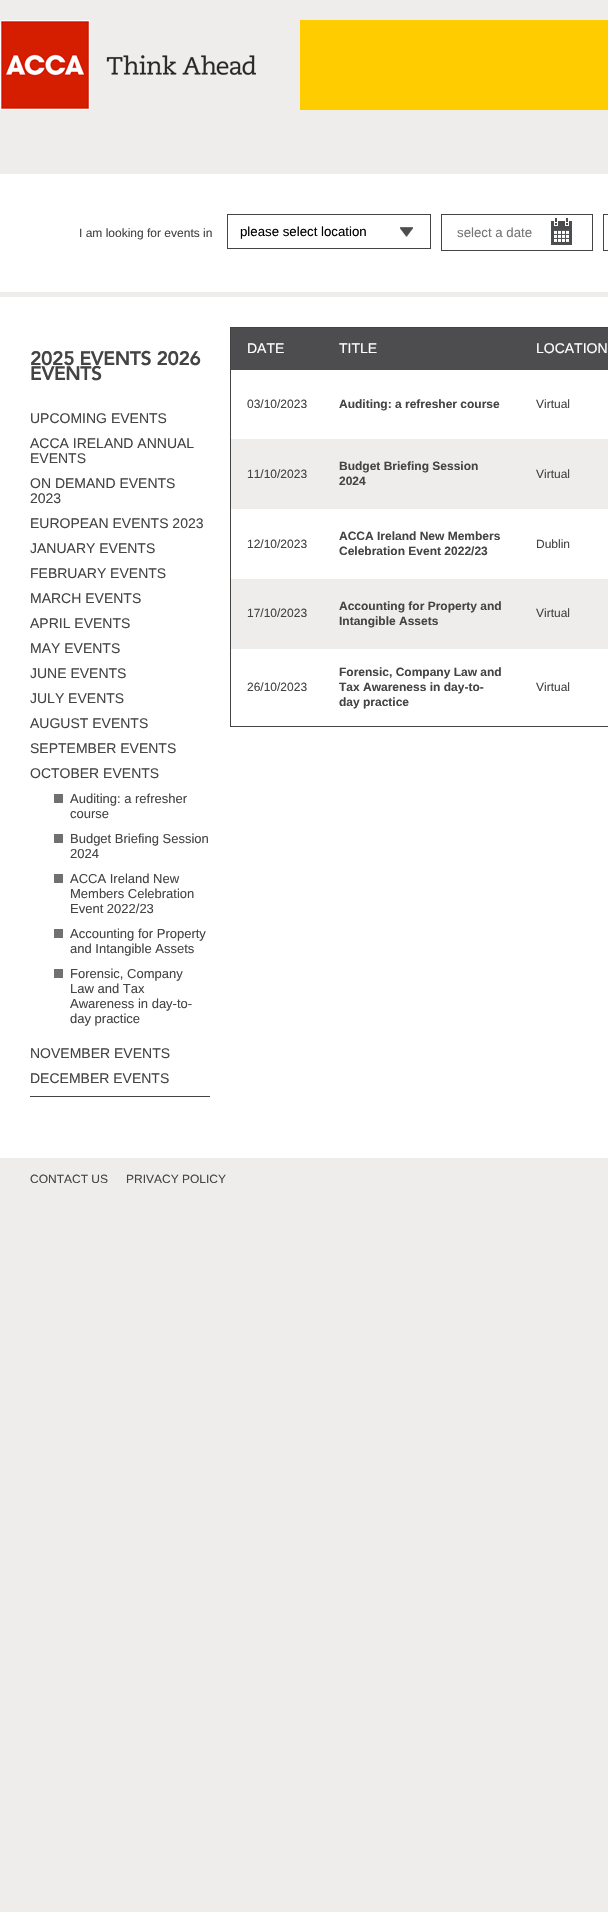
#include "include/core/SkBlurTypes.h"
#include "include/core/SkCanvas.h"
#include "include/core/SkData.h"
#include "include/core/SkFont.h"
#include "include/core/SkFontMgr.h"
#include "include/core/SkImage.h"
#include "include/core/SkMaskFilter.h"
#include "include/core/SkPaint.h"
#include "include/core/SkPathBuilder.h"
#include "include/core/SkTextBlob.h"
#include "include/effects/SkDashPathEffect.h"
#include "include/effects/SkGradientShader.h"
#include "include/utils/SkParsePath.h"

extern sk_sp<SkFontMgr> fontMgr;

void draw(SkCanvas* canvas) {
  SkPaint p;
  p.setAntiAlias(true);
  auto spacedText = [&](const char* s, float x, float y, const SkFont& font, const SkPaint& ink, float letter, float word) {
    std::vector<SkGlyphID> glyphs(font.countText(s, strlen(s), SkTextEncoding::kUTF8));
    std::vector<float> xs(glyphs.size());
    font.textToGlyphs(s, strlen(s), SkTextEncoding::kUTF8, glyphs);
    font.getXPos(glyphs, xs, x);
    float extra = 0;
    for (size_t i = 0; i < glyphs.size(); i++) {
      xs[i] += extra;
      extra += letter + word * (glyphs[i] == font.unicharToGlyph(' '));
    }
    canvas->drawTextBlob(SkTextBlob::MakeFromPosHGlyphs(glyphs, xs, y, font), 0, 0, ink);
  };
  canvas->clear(SkColorSetRGB(239, 237, 236));
  canvas->drawImageRect(SkImages::DeferredFromEncodedData(SkData::MakeFromFileName("images/1.png")), SkRect::MakeLTRB(0, 20, 256, 110), SkSamplingOptions());
  p.setColor(SkColorSetRGB(255, 204, 0));
  canvas->drawRect(SkRect::MakeLTRB(300, 20, 608, 110), p);
  p.setColor(SK_ColorWHITE);
  canvas->drawRect(SkRect::MakeLTRB(0, 174, 608, 292), p);
  canvas->drawImageRect(SkImages::DeferredFromEncodedData(SkData::MakeFromFileName("images/2.png")), SkRect::MakeLTRB(400, 227, 413, 237), SkSamplingOptions());
  p.setStyle(SkPaint::kStroke_Style);
  p.setStrokeWidth(1);
  p.setColor(SkColorSetRGB(68, 68, 68));
  canvas->drawRect(SkRect::MakeLTRB(227.5f, 214.5f, 430.5f, 248.5f), p);
  canvas->drawImageRect(SkImages::DeferredFromEncodedData(SkData::MakeFromFileName("images/3.png")), SkRect::MakeLTRB(551, 218, 572, 245), SkSamplingOptions());
  canvas->drawRect(SkRect::MakeLTRB(441.5f, 214.5f, 592.5f, 250.5f), p);
  canvas->drawRect(SkRect::MakeLTRB(603.5f, 214.5f, 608.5f, 250.5f), p);
  p.setStyle(SkPaint::kFill_Style);
  p.setColor(SK_ColorWHITE);
  canvas->drawRect(SkRect::MakeLTRB(0, 297, 608, 1158), p);
  p.setColor(SkColorSetRGB(68, 68, 68));
  canvas->drawRect(SkRect::MakeLTRB(30, 1096, 210, 1097), p);
  p.setColor(SkColorSetRGB(112, 112, 112));
  canvas->drawRect(SkRect::MakeLTRB(54, 794, 63, 803), p);
  canvas->drawRect(SkRect::MakeLTRB(54, 834, 63, 843), p);
  canvas->drawRect(SkRect::MakeLTRB(54, 874, 63, 883), p);
  canvas->drawRect(SkRect::MakeLTRB(54, 929, 63, 938), p);
  canvas->drawRect(SkRect::MakeLTRB(54, 969, 63, 978), p);
  p.setStyle(SkPaint::kStroke_Style);
  p.setColor(SkColorSetRGB(68, 68, 68));
  canvas->drawRect(SkRect::MakeLTRB(230.5f, 327.5f, 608.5f, 726.5f), p);
  p.setStyle(SkPaint::kFill_Style);
  p.setColor(SkColorSetRGB(77, 77, 79));
  canvas->drawRect(SkRect::MakeLTRB(231, 328, 608, 370), p);
  p.setColor(SkColorSetRGB(239, 237, 236));
  canvas->drawRect(SkRect::MakeLTRB(231, 439, 608, 509), p);
  canvas->drawRect(SkRect::MakeLTRB(231, 579, 608, 649), p);
  SkFont font1(fontMgr->matchFamilyStyle("Liberation Sans", SkFontStyle::Normal()), 12);
  font1.setSubpixel(true);
  p.setColor(SkColorSetRGB(68, 68, 68));
  canvas->drawString("I am looking for events in", 79, 237, font1, p);
  SkFont font2(fontMgr->matchFamilyStyle("Liberation Sans", SkFontStyle::Normal()), 13.25f);
  font2.setSubpixel(true);
  p.setColor(SK_ColorBLACK);
  canvas->drawString("please select location", 240, 236, font2, p);
  p.setColor(SkColorSetRGB(117, 117, 117));
  canvas->drawString("select a date", 457, 237, font2, p);
  SkFont font3(fontMgr->matchFamilyStyle("Avenir", SkFontStyle(900, SkFontStyle::kNormal_Width, SkFontStyle::kUpright_Slant)), 19.5f);
  font3.setSubpixel(true);
  p.setColor(SkColorSetRGB(68, 68, 68));
  spacedText("2025 EVENTS 2026", 30, 365, font3, p, -0.5f, 0);
  spacedText("EVENTS", 30, 380, font3, p, -0.5f, 0);
  SkFont font4(fontMgr->matchFamilyStyle("Liberation Sans", SkFontStyle::Normal()), 14);
  font4.setSubpixel(true);
  canvas->drawString("UPCOMING EVENTS", 30, 423, font4, p);
  canvas->drawString("ACCA IRELAND ANNUAL", 30, 448, font4, p);
  canvas->drawString("EVENTS", 30, 463, font4, p);
  canvas->drawString("ON DEMAND EVENTS", 30, 488, font4, p);
  canvas->drawString("2023", 30, 503, font4, p);
  canvas->drawString("EUROPEAN EVENTS 2023", 30, 528, font4, p);
  canvas->drawString("JANUARY EVENTS", 30, 553, font4, p);
  canvas->drawString("FEBRUARY EVENTS", 30, 578, font4, p);
  canvas->drawString("MARCH EVENTS", 30, 603, font4, p);
  canvas->drawString("APRIL EVENTS", 30, 628, font4, p);
  canvas->drawString("MAY EVENTS", 30, 653, font4, p);
  canvas->drawString("JUNE EVENTS", 30, 678, font4, p);
  canvas->drawString("JULY EVENTS", 30, 703, font4, p);
  canvas->drawString("AUGUST EVENTS", 30, 728, font4, p);
  canvas->drawString("SEPTEMBER EVENTS", 30, 753, font4, p);
  canvas->drawString("OCTOBER EVENTS", 30, 778, font4, p);
  SkFont font5(fontMgr->matchFamilyStyle("Liberation Sans", SkFontStyle::Normal()), 13);
  font5.setSubpixel(true);
  canvas->drawString("Auditing: a refresher", 70, 803, font5, p);
  canvas->drawString("course", 70, 818, font5, p);
  canvas->drawString("Budget Briefing Session", 70, 843, font5, p);
  canvas->drawString("2024", 70, 858, font5, p);
  canvas->drawString("ACCA Ireland New", 70, 883, font5, p);
  canvas->drawString("Members Celebration", 70, 898, font5, p);
  canvas->drawString("Event 2022/23", 70, 913, font5, p);
  canvas->drawString("Accounting for Property", 70, 938, font5, p);
  canvas->drawString("and Intangible Assets", 70, 953, font5, p);
  canvas->drawString("Forensic, Company", 70, 978, font5, p);
  canvas->drawString("Law and Tax", 70, 993, font5, p);
  canvas->drawString("Awareness in day-to-", 70, 1008, font5, p);
  canvas->drawString("day practice", 70, 1023, font5, p);
  canvas->drawString("NOVEMBER EVENTS", 30, 1058, font4, p);
  canvas->drawString("DECEMBER EVENTS", 30, 1083, font4, p);
  p.setColor(SK_ColorWHITE);
  canvas->drawString("DATE", 247, 353, font4, p);
  canvas->drawString("TITLE", 339, 353, font4, p);
  canvas->drawString("LOCATION", 536, 353, font4, p);
  p.setColor(SkColorSetRGB(68, 68, 68));
  canvas->drawString("03/10/2023", 247, 408, font1, p);
  SkFont font6(fontMgr->matchFamilyStyle("Liberation Sans", SkFontStyle::Bold()), 12);
  font6.setSubpixel(true);
  canvas->drawString("Auditing: a refresher course", 339, 408, font6, p);
  canvas->drawString("Virtual", 536, 408, font1, p);
  canvas->drawString("11/10/2023", 247, 478, font1, p);
  canvas->drawString("Budget Briefing Session", 339, 470, font6, p);
  canvas->drawString("2024", 339, 485, font6, p);
  canvas->drawString("Virtual", 536, 478, font1, p);
  canvas->drawString("12/10/2023", 247, 548, font1, p);
  canvas->drawString("ACCA Ireland New Members", 339, 540, font6, p);
  canvas->drawString("Celebration Event 2022/23", 339, 555, font6, p);
  canvas->drawString("Dublin", 536, 548, font1, p);
  canvas->drawString("17/10/2023", 247, 617, font1, p);
  canvas->drawString("Accounting for Property and", 339, 610, font6, p);
  canvas->drawString("Intangible Assets", 339, 625, font6, p);
  canvas->drawString("Virtual", 536, 617, font1, p);
  canvas->drawString("26/10/2023", 247, 691, font1, p);
  canvas->drawString("Forensic, Company Law and", 339, 676, font6, p);
  canvas->drawString("Tax Awareness in day-to-", 339, 691, font6, p);
  canvas->drawString("day practice", 339, 706, font6, p);
  canvas->drawString("Virtual", 536, 691, font1, p);
  canvas->drawString("CONTACT US", 30, 1183, font1, p);
  canvas->drawString("PRIVACY POLICY", 126, 1183, font1, p);
}
